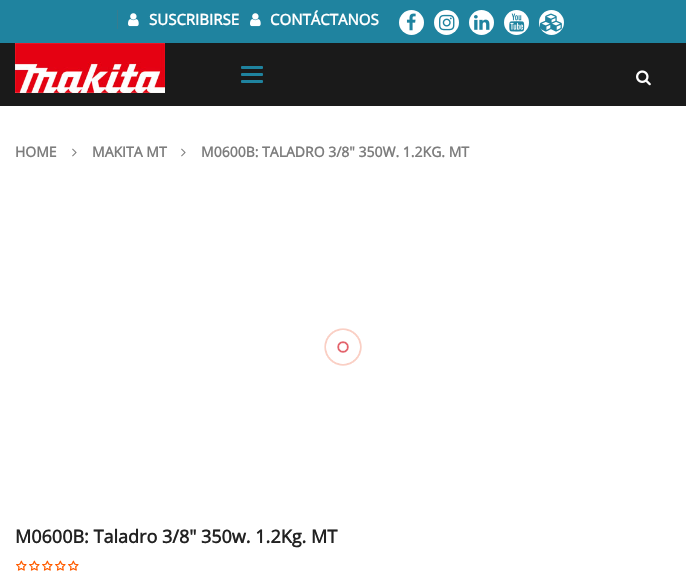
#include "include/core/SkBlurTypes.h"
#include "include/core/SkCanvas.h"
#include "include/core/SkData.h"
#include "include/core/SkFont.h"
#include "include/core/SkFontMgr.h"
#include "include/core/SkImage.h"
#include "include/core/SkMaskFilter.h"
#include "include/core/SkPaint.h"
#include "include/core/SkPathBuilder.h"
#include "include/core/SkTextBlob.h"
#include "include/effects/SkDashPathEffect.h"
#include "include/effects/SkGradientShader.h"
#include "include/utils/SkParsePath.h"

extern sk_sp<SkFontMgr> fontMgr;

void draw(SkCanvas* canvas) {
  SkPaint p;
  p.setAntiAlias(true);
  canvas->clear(SK_ColorWHITE);
  p.setColor(SkColorSetRGB(31, 131, 159));
  canvas->drawRect(SkRect::MakeLTRB(0, 0, 686, 43), p);
  p.setColor(SkColorSetRGB(54, 124, 144));
  canvas->drawRect(SkRect::MakeLTRB(117, 10, 118, 29), p);
  canvas->drawImageRect(SkImages::DeferredFromEncodedData(SkData::MakeFromFileName("images/1.png")), SkRect::MakeLTRB(128, 13, 139, 27), SkSamplingOptions());
  canvas->drawRect(SkRect::MakeLTRB(239, 10, 240, 29), p);
  canvas->drawImageRect(SkImages::DeferredFromEncodedData(SkData::MakeFromFileName("images/1.png")), SkRect::MakeLTRB(250, 13, 261, 27), SkSamplingOptions());
  p.setColor(SK_ColorWHITE);
  canvas->drawCircle(411.5f, 22.5f, 12.5f, p);
  canvas->drawImageRect(SkImages::DeferredFromEncodedData(SkData::MakeFromFileName("images/2.png")), SkRect::MakeLTRB(406, 13, 416, 31), SkSamplingOptions());
  canvas->drawCircle(446.5f, 22.5f, 12.5f, p);
  canvas->drawImageRect(SkImages::DeferredFromEncodedData(SkData::MakeFromFileName("images/3.png")), SkRect::MakeLTRB(439, 14, 455, 31), SkSamplingOptions());
  canvas->drawCircle(481.5f, 22.5f, 12.5f, p);
  canvas->drawImageRect(SkImages::DeferredFromEncodedData(SkData::MakeFromFileName("images/4.png")), SkRect::MakeLTRB(474, 15, 490, 30), SkSamplingOptions());
  canvas->drawCircle(516.5f, 22.5f, 12.5f, p);
  canvas->drawImageRect(SkImages::DeferredFromEncodedData(SkData::MakeFromFileName("images/5.png")), SkRect::MakeLTRB(509, 13, 525, 32), SkSamplingOptions());
  canvas->drawCircle(551.5f, 22.5f, 12.5f, p);
  canvas->drawImageRect(SkImages::DeferredFromEncodedData(SkData::MakeFromFileName("images/6.png")), SkRect::MakeLTRB(540, 13, 562, 32), SkSamplingOptions());
  p.setColor(SkColorSetRGB(26, 26, 26));
  canvas->drawRect(SkRect::MakeLTRB(0, 43, 686, 106), p);
  canvas->drawImageRect(SkImages::DeferredFromEncodedData(SkData::MakeFromFileName("images/7.png")), SkRect::MakeLTRB(15, 43, 165, 93), SkSamplingOptions());
  p.setColor(SkColorSetRGB(31, 131, 159));
  canvas->drawRoundRect(SkRect::MakeLTRB(241, 66, 263, 69), 1, 1, p);
  canvas->drawRoundRect(SkRect::MakeLTRB(241, 73, 263, 76), 1, 1, p);
  canvas->drawRoundRect(SkRect::MakeLTRB(241, 80, 263, 83), 1, 1, p);
  canvas->drawImageRect(SkImages::DeferredFromEncodedData(SkData::MakeFromFileName("images/8.png")), SkRect::MakeLTRB(636, 70, 651, 86), SkSamplingOptions());
  canvas->drawImageRect(SkImages::DeferredFromEncodedData(SkData::MakeFromFileName("images/9.png")), SkRect::MakeLTRB(72, 148, 77, 157), SkSamplingOptions());
  canvas->drawImageRect(SkImages::DeferredFromEncodedData(SkData::MakeFromFileName("images/9.png")), SkRect::MakeLTRB(181, 148, 186, 157), SkSamplingOptions());
  canvas->drawImageRect(SkImages::DeferredFromEncodedData(SkData::MakeFromFileName("images/10.png")), SkRect::MakeLTRB(324, 328, 362, 366), SkSamplingOptions());
  canvas->drawImageRect(SkImages::DeferredFromEncodedData(SkData::MakeFromFileName("images/11.png")), SkRect::MakeLTRB(16, 560, 79, 571), SkSamplingOptions());
  SkFont font1(fontMgr->matchFamilyStyle("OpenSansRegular", SkFontStyle::Bold()), 15);
  font1.setSubpixel(true);
  p.setColor(SK_ColorWHITE);
  canvas->drawString("SUSCRIBIRSE", 149, 25, font1, p);
  canvas->drawString("CONTÁCTANOS", 270, 25, font1, p);
  SkFont font2(fontMgr->matchFamilyStyle("OpenSansRegular", SkFontStyle::Bold()), 14);
  font2.setSubpixel(true);
  p.setColor(SkColorSetRGB(125, 125, 125));
  canvas->drawString("HOME", 15, 157, font2, p);
  canvas->drawString("MAKITA MT", 92, 157, font2, p);
  canvas->drawString("M0600B: TALADRO 3/8″ 350W. 1.2KG. MT", 201, 157, font2, p);
  SkFont font3(fontMgr->matchFamilyStyle("OpenSansRegular", SkFontStyle::Bold()), 18);
  font3.setSubpixel(true);
  p.setColor(SkColorSetRGB(34, 34, 34));
  canvas->drawString("M0600B: Taladro 3/8″ 350w. 1.2Kg. MT", 15, 543, font3, p);
}
